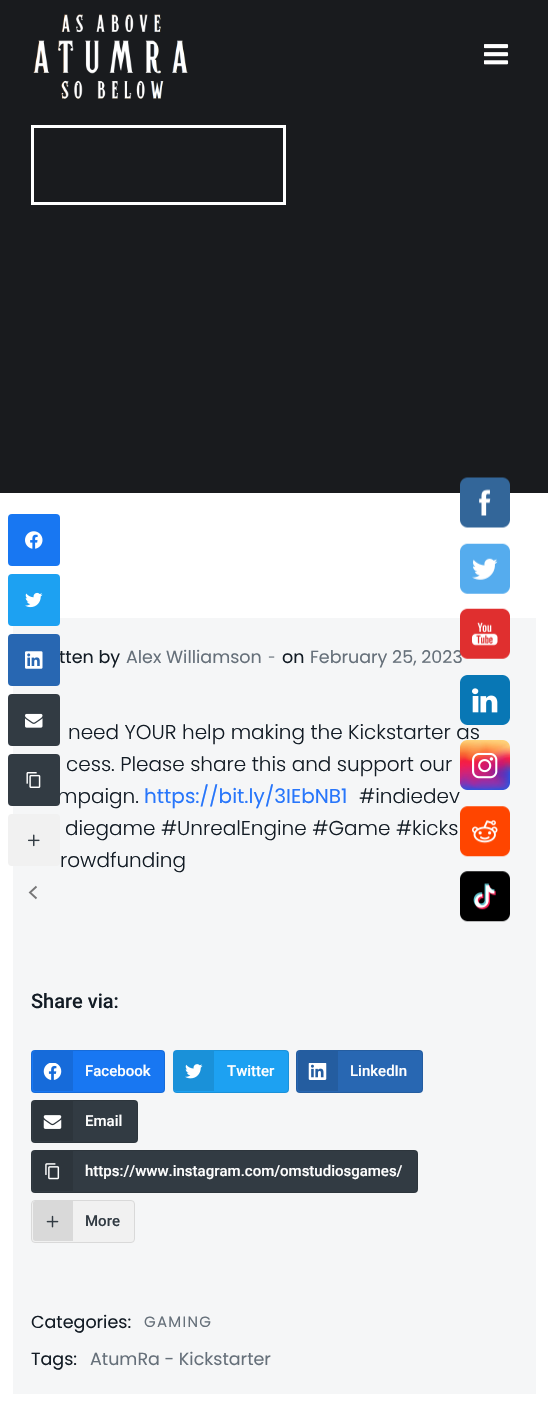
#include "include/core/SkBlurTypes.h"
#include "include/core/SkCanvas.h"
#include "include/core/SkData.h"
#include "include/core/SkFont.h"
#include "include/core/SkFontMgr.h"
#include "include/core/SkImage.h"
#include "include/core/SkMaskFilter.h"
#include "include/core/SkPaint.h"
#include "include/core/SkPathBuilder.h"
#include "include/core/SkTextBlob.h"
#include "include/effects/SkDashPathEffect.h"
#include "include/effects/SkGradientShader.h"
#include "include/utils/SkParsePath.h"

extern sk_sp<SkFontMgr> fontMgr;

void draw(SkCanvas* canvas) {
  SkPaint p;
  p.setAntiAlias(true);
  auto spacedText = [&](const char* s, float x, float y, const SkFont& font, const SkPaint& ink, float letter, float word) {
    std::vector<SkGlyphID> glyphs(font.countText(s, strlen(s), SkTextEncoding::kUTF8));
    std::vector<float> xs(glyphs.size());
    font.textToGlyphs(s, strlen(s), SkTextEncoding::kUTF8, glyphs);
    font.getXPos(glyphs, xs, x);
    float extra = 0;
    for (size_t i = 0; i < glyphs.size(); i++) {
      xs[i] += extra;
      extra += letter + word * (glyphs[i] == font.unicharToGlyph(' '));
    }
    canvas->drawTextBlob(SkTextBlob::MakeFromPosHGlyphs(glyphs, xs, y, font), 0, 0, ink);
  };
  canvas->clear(SK_ColorWHITE);
  p.setColor(SkColorSetRGB(24, 119, 242));
  canvas->drawRoundRect(SkRect::MakeLTRB(8, 514, 60, 566), 4, 4, p);
  canvas->drawImageRect(SkImages::DeferredFromEncodedData(SkData::MakeFromFileName("images/1.png")), SkRect::MakeLTRB(25, 531, 43, 549), SkSamplingOptions());
  p.setColor(SkColorSetRGB(245, 246, 247));
  canvas->drawRect(SkRect::MakeLTRB(13, 618, 536, 1394), p);
  p.setColor(SkColorSetRGB(29, 161, 242));
  canvas->drawRoundRect(SkRect::MakeLTRB(8, 574, 60, 626), 4, 4, p);
  canvas->drawImageRect(SkImages::DeferredFromEncodedData(SkData::MakeFromFileName("images/2.png")), SkRect::MakeLTRB(25, 592, 43, 608), SkSamplingOptions());
  p.setColor(SkColorSetRGB(50, 59, 67));
  canvas->drawRoundRect(SkRect::MakeLTRB(8, 694, 60, 746), 4, 4, p);
  canvas->drawImageRect(SkImages::DeferredFromEncodedData(SkData::MakeFromFileName("images/4.png")), SkRect::MakeLTRB(25, 713, 43, 728), SkSamplingOptions());
  p.setColor(SkColorSetRGB(241, 241, 241));
  canvas->drawRoundRect(SkRect::MakeLTRB(8, 814, 60, 866), 4, 4, p);
  canvas->drawImageRect(SkImages::DeferredFromEncodedData(SkData::MakeFromFileName("images/6.png")), SkRect::MakeLTRB(28, 834, 40, 847), SkSamplingOptions());
  p.setStyle(SkPaint::kStroke_Style);
  p.setStrokeWidth(1.9f);
  p.setColor(SkColorSetRGB(119, 119, 120));
  canvas->drawPath(SkPathBuilder().moveTo(36.5f, 886.5f).lineTo(30, 892.5f).lineTo(36.5f, 898.5f).detach(), p);
  p.setStyle(SkPaint::kFill_Style);
  p.setColor(SkColorSetRGB(25, 27, 30));
  canvas->drawRect(SkRect::MakeLTRB(0, 0, 548, 493), p);
  canvas->drawImageRect(SkImages::DeferredFromEncodedData(SkData::MakeFromFileName("images/7.png")), SkRect::MakeLTRB(460, 477, 510, 528), SkSamplingOptions());
  canvas->drawImageRect(SkImages::DeferredFromEncodedData(SkData::MakeFromFileName("images/8.png")), SkRect::MakeLTRB(460, 543, 510, 594), SkSamplingOptions());
  canvas->drawImageRect(SkImages::DeferredFromEncodedData(SkData::MakeFromFileName("images/12.png")), SkRect::MakeLTRB(460, 806, 510, 857), SkSamplingOptions());
  canvas->drawImageRect(SkImages::DeferredFromEncodedData(SkData::MakeFromFileName("images/13.png")), SkRect::MakeLTRB(460, 871, 510, 922), SkSamplingOptions());
  canvas->drawImageRect(SkImages::DeferredFromEncodedData(SkData::MakeFromFileName("images/14.png")), SkRect::MakeLTRB(33, 14, 188, 99), SkSamplingOptions());
  canvas->drawImageRect(SkImages::DeferredFromEncodedData(SkData::MakeFromFileName("images/15.png")), SkRect::MakeLTRB(484, 44, 509, 65), SkSamplingOptions());
  p.setStyle(SkPaint::kStroke_Style);
  p.setStrokeWidth(3);
  p.setColor(SK_ColorWHITE);
  canvas->drawRect(SkRect::MakeLTRB(32.5f, 126.5f, 284.5f, 203.5f), p);
  p.setStyle(SkPaint::kFill_Style);
  p.setColor(SkColorSetRGB(24, 119, 242));
  canvas->drawRoundRect(SkRect::MakeLTRB(31, 1050, 165, 1093), 4, 4, p);
  p.setStyle(SkPaint::kStroke_Style);
  p.setStrokeWidth(1);
  p.setColor(SkColorSetARGB(26, 0, 0, 0));
  canvas->drawRoundRect(SkRect::MakeLTRB(31.5f, 1050.5f, 164.5f, 1092.5f), 3.5f, 3.5f, p);
  p.setStyle(SkPaint::kFill_Style);
  p.setColor(SkColorSetRGB(22, 107, 218));
  canvas->drawPath(SkPathBuilder().moveTo(35.5f, 1051).lineTo(73, 1051).lineTo(73, 1091).lineTo(35.5f, 1091).cubicTo(34, 1091, 33, 1090, 33, 1088.5f).lineTo(33, 1053.5f).cubicTo(33, 1052, 34, 1051, 35.5f, 1051).close().detach(), p);
  canvas->drawImageRect(SkImages::DeferredFromEncodedData(SkData::MakeFromFileName("images/16.png")), SkRect::MakeLTRB(43, 1063, 62, 1080), SkSamplingOptions());
  p.setColor(SkColorSetRGB(29, 161, 242));
  canvas->drawRoundRect(SkRect::MakeLTRB(173, 1050, 289, 1093), 4, 4, p);
  p.setStyle(SkPaint::kStroke_Style);
  p.setColor(SkColorSetARGB(26, 0, 0, 0));
  canvas->drawRoundRect(SkRect::MakeLTRB(173.5f, 1050.5f, 288.5f, 1092.5f), 3.5f, 3.5f, p);
  p.setStyle(SkPaint::kFill_Style);
  canvas->drawPath(SkPathBuilder().moveTo(176.5f, 1051).lineTo(214, 1051).lineTo(214, 1091).lineTo(176.5f, 1091).cubicTo(175, 1091, 174, 1090, 174, 1088.5f).lineTo(174, 1053.5f).cubicTo(174, 1052, 175, 1051, 176.5f, 1051).close().detach(), p);
  canvas->drawImageRect(SkImages::DeferredFromEncodedData(SkData::MakeFromFileName("images/17.png")), SkRect::MakeLTRB(185, 1064, 203, 1079), SkSamplingOptions());
  p.setColor(SkColorSetRGB(40, 103, 178));
  canvas->drawRoundRect(SkRect::MakeLTRB(296, 1050, 423, 1093), 4, 4, p);
  p.setStyle(SkPaint::kStroke_Style);
  p.setColor(SkColorSetARGB(26, 0, 0, 0));
  canvas->drawRoundRect(SkRect::MakeLTRB(296.5f, 1050.5f, 422.5f, 1092.5f), 3.5f, 3.5f, p);
  p.setStyle(SkPaint::kFill_Style);
  p.setColor(SkColorSetRGB(36, 93, 160));
  canvas->drawPath(SkPathBuilder().moveTo(300.5f, 1051).lineTo(338, 1051).lineTo(338, 1091).lineTo(300.5f, 1091).cubicTo(299, 1091, 298, 1090, 298, 1088.5f).lineTo(298, 1053.5f).cubicTo(298, 1052, 299, 1051, 300.5f, 1051).close().detach(), p);
  canvas->drawImageRect(SkImages::DeferredFromEncodedData(SkData::MakeFromFileName("images/18.png")), SkRect::MakeLTRB(308, 1063, 327, 1080), SkSamplingOptions());
  p.setColor(SkColorSetRGB(50, 59, 67));
  canvas->drawRoundRect(SkRect::MakeLTRB(31, 1100, 138, 1143), 4, 4, p);
  p.setStyle(SkPaint::kStroke_Style);
  p.setColor(SkColorSetARGB(26, 0, 0, 0));
  canvas->drawRoundRect(SkRect::MakeLTRB(31.5f, 1100.5f, 137.5f, 1142.5f), 3.5f, 3.5f, p);
  p.setStyle(SkPaint::kFill_Style);
  p.setColor(SkColorSetRGB(45, 53, 60));
  canvas->drawPath(SkPathBuilder().moveTo(35.5f, 1101).lineTo(73, 1101).lineTo(73, 1141).lineTo(35.5f, 1141).cubicTo(34, 1141, 33, 1140, 33, 1138.5f).lineTo(33, 1103.5f).cubicTo(33, 1102, 34, 1101, 35.5f, 1101).close().detach(), p);
  canvas->drawImageRect(SkImages::DeferredFromEncodedData(SkData::MakeFromFileName("images/19.png")), SkRect::MakeLTRB(43, 1115, 62, 1129), SkSamplingOptions());
  p.setColor(SkColorSetRGB(50, 59, 67));
  canvas->drawRoundRect(SkRect::MakeLTRB(31, 1150, 418, 1193), 4, 4, p);
  p.setStyle(SkPaint::kStroke_Style);
  p.setColor(SkColorSetARGB(26, 0, 0, 0));
  canvas->drawRoundRect(SkRect::MakeLTRB(31.5f, 1150.5f, 417.5f, 1192.5f), 3.5f, 3.5f, p);
  p.setStyle(SkPaint::kFill_Style);
  p.setColor(SkColorSetRGB(45, 53, 60));
  canvas->drawPath(SkPathBuilder().moveTo(35.5f, 1151).lineTo(73, 1151).lineTo(73, 1191).lineTo(35.5f, 1191).cubicTo(34, 1191, 33, 1190, 33, 1188.5f).lineTo(33, 1153.5f).cubicTo(33, 1152, 34, 1151, 35.5f, 1151).close().detach(), p);
  canvas->drawImageRect(SkImages::DeferredFromEncodedData(SkData::MakeFromFileName("images/20.png")), SkRect::MakeLTRB(45, 1163, 60, 1180), SkSamplingOptions());
  p.setColor(SkColorSetRGB(241, 241, 241));
  canvas->drawRoundRect(SkRect::MakeLTRB(31.5f, 1200.5f, 134.5f, 1242.5f), 3.5f, 3.5f, p);
  p.setStyle(SkPaint::kStroke_Style);
  p.setColor(SkColorSetRGB(217, 217, 217));
  canvas->drawRoundRect(SkRect::MakeLTRB(31.5f, 1200.5f, 134.5f, 1242.5f), 3.5f, 3.5f, p);
  p.setStyle(SkPaint::kFill_Style);
  canvas->drawPath(SkPathBuilder().moveTo(35.5f, 1201).lineTo(73, 1201).lineTo(73, 1241).lineTo(35.5f, 1241).cubicTo(34, 1241, 33, 1240, 33, 1238.5f).lineTo(33, 1203.5f).cubicTo(33, 1202, 34, 1201, 35.5f, 1201).close().detach(), p);
  canvas->drawImageRect(SkImages::DeferredFromEncodedData(SkData::MakeFromFileName("images/21.png")), SkRect::MakeLTRB(46, 1215, 59, 1228), SkSamplingOptions());
  SkFont font1(fontMgr->matchFamilyStyle("Poppins", SkFontStyle::Normal()), 17.5f);
  font1.setSubpixel(true);
  p.setColor(SkColorSetRGB(19, 28, 37));
  canvas->drawString("tten by", 59, 663, font1, p);
  p.setColor(SkColorSetRGB(40, 103, 178));
  canvas->drawRoundRect(SkRect::MakeLTRB(8, 634, 60, 686), 4, 4, p);
  canvas->drawImageRect(SkImages::DeferredFromEncodedData(SkData::MakeFromFileName("images/3.png")), SkRect::MakeLTRB(25, 651, 43, 669), SkSamplingOptions());
  p.setColor(SkColorSetRGB(102, 112, 122));
  canvas->drawString("Alex Williamson", 126, 663, font1, p);
  SkFont font2(fontMgr->matchFamilyStyle("Open Sans", SkFontStyle(300, SkFontStyle::kNormal_Width, SkFontStyle::kUpright_Slant)), 22);
  font2.setSubpixel(true);
  spacedText("-", 268, 663, font2, p, 2, 0);
  p.setColor(SkColorSetRGB(19, 28, 37));
  canvas->drawString("on", 282, 663, font1, p);
  p.setColor(SkColorSetRGB(102, 112, 122));
  canvas->drawString("February 25, 2023", 310, 663, font1, p);
  canvas->drawImageRect(SkImages::DeferredFromEncodedData(SkData::MakeFromFileName("images/9.png")), SkRect::MakeLTRB(460, 608, 510, 659), SkSamplingOptions());
  SkFont font3(fontMgr->matchFamilyStyle("Poppins", SkFontStyle(300, SkFontStyle::kNormal_Width, SkFontStyle::kUpright_Slant)), 20);
  font3.setSubpixel(true);
  p.setColor(SkColorSetRGB(19, 28, 37));
  canvas->drawString("need YOUR help making the Kickstarter as", 68, 739, font3, p);
  canvas->drawImageRect(SkImages::DeferredFromEncodedData(SkData::MakeFromFileName("images/11.png")), SkRect::MakeLTRB(460, 740, 510, 790), SkSamplingOptions());
  canvas->drawImageRect(SkImages::DeferredFromEncodedData(SkData::MakeFromFileName("images/10.png")), SkRect::MakeLTRB(460, 675, 510, 725), SkSamplingOptions());
  canvas->drawString("cess. Please share this and support our", 66, 771, font3, p);
  canvas->drawString("mpaign.", 57, 803, font3, p);
  p.setColor(SkColorSetRGB(50, 59, 67));
  canvas->drawRoundRect(SkRect::MakeLTRB(8, 754, 60, 806), 4, 4, p);
  canvas->drawImageRect(SkImages::DeferredFromEncodedData(SkData::MakeFromFileName("images/5.png")), SkRect::MakeLTRB(26, 772, 41, 788), SkSamplingOptions());
  SkFont font4(fontMgr->matchFamilyStyle("Poppins", SkFontStyle::Normal()), 20);
  font4.setSubpixel(true);
  p.setColor(SkColorSetRGB(40, 118, 251));
  canvas->drawString("https://bit.ly/3IEbNB1", 144, 803, font4, p);
  p.setColor(SkColorSetRGB(19, 28, 37));
  canvas->drawString("#indiedev", 359, 803, font3, p);
  canvas->drawString("diegame #UnrealEngine #Game #kicks", 65, 835, font3, p);
  canvas->drawString("rowdfunding", 60, 867, font3, p);
  SkFont font5(fontMgr->matchFamilyStyle("Roboto", SkFontStyle(500, SkFontStyle::kNormal_Width, SkFontStyle::kUpright_Slant)), 20);
  font5.setSubpixel(true);
  canvas->drawString("Share via:", 31, 1008, font5, p);
  SkFont font6(fontMgr->matchFamilyStyle("Roboto", SkFontStyle(500, SkFontStyle::kNormal_Width, SkFontStyle::kUpright_Slant)), 15);
  font6.setSubpixel(true);
  p.setColor(SK_ColorWHITE);
  canvas->drawString("Facebook", 85, 1076, font6, p);
  canvas->drawString("Twitter", 227, 1076, font6, p);
  canvas->drawString("LinkedIn", 350, 1076, font6, p);
  canvas->drawString("Email", 85, 1126, font6, p);
  canvas->drawString("https://www.instagram.com/omstudiosgames/", 85, 1176, font6, p);
  p.setColor(SkColorSetRGB(50, 59, 67));
  canvas->drawString("More", 85, 1226, font6, p);
  p.setColor(SkColorSetRGB(19, 28, 37));
  canvas->drawString("Categories:", 31, 1328, font1, p);
  SkFont font7(fontMgr->matchFamilyStyle("Poppins", SkFontStyle::Normal()), 15);
  font7.setSubpixel(true);
  p.setColor(SkColorSetRGB(102, 112, 122));
  spacedText("GAMING", 144, 1327, font7, p, 1.25f, 0);
  p.setColor(SkColorSetRGB(19, 28, 37));
  canvas->drawString("Tags:", 31, 1365, font1, p);
  p.setColor(SkColorSetRGB(102, 112, 122));
  canvas->drawString("AtumRa - Kickstarter", 90, 1365, font1, p);
}
